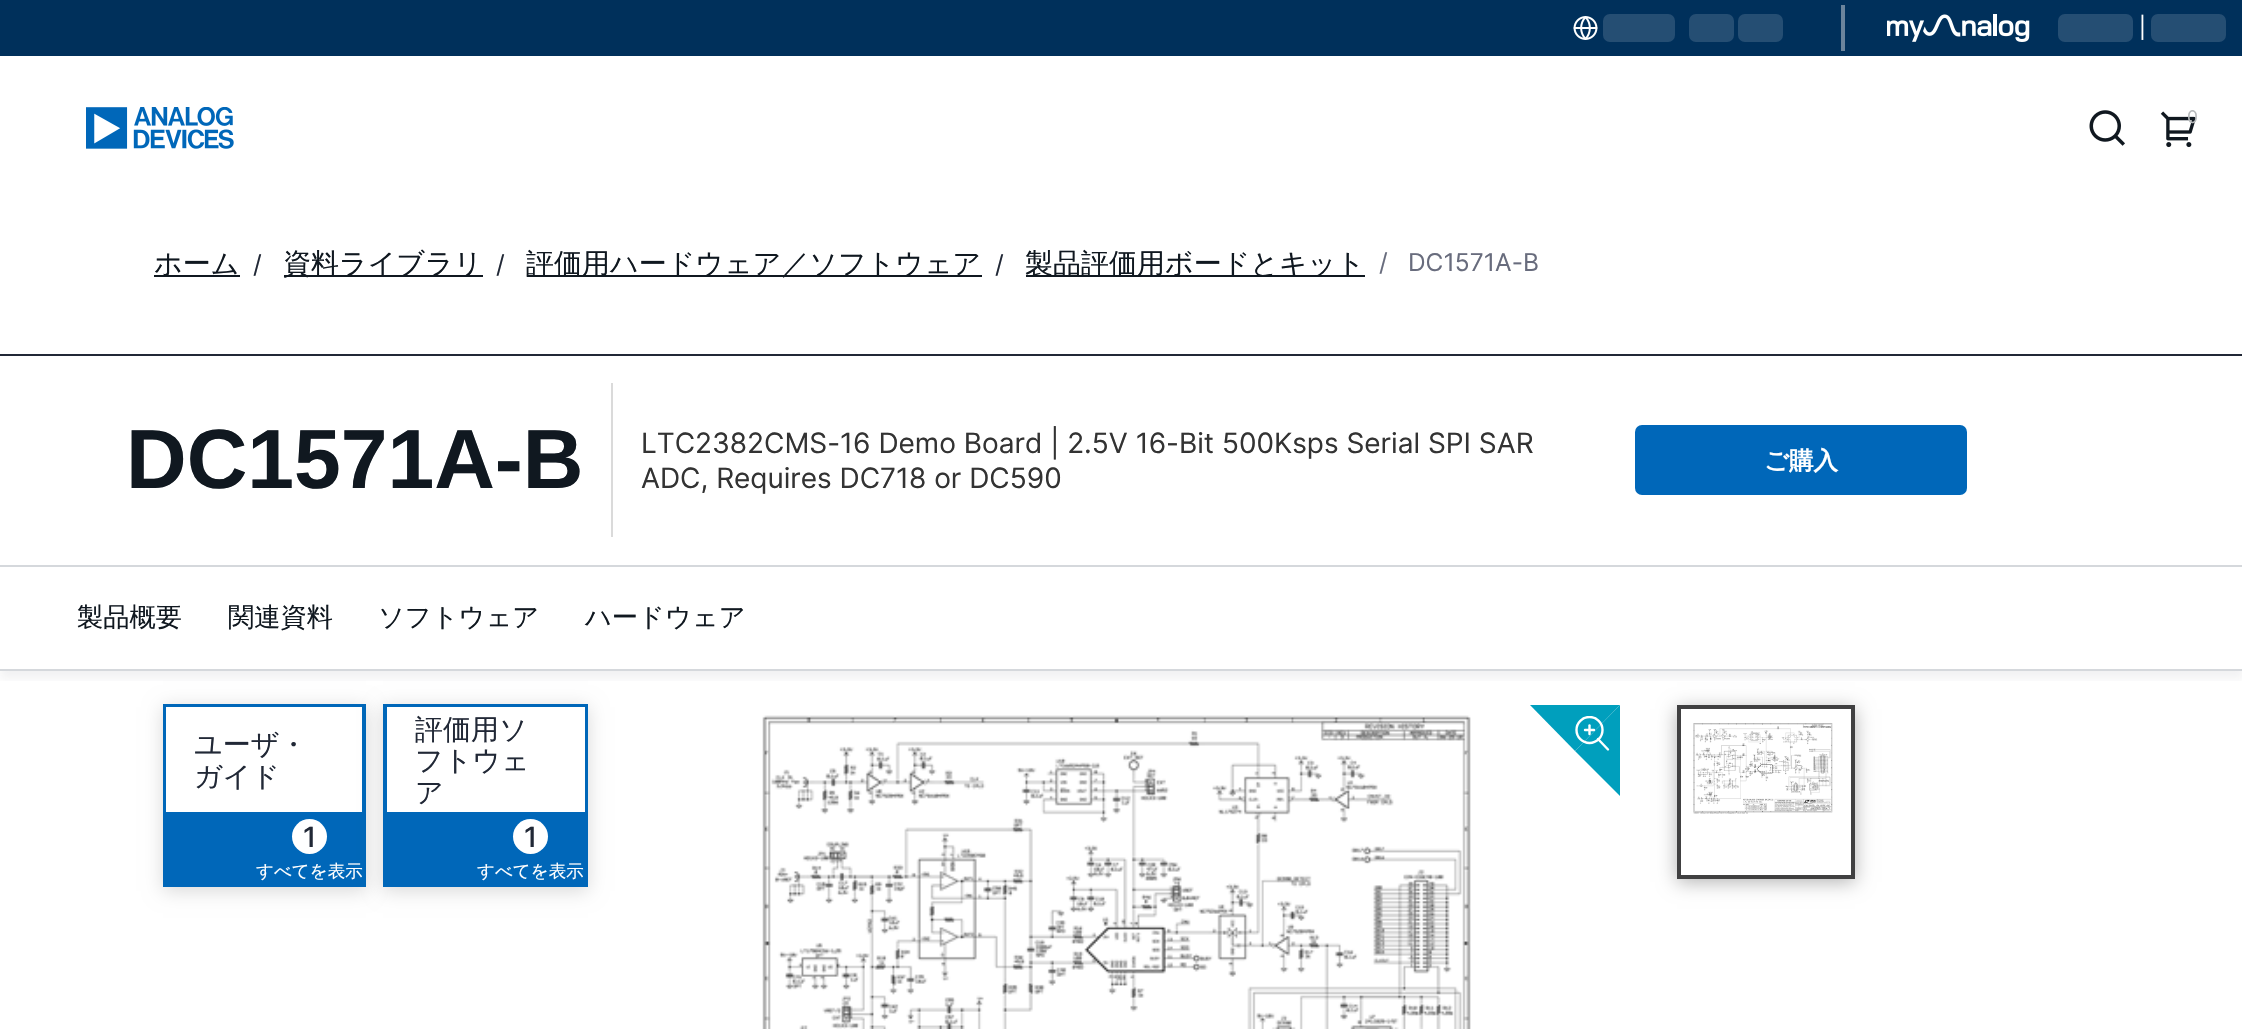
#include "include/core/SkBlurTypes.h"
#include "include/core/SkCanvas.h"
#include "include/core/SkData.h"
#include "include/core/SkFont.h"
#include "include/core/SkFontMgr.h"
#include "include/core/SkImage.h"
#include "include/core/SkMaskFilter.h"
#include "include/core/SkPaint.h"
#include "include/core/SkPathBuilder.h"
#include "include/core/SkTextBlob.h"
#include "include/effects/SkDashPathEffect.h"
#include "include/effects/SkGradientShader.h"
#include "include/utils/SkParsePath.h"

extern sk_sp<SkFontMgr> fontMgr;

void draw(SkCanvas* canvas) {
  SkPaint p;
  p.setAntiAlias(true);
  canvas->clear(SK_ColorWHITE);
  p.setColor(SkColorSetRGB(0, 48, 91));
  canvas->drawRect(SkRect::MakeLTRB(0, 0, 2242, 56), p);
  canvas->drawImageRect(SkImages::DeferredFromEncodedData(SkData::MakeFromFileName("images/1.png")), SkRect::MakeLTRB(1573, 16, 1598, 40), SkSamplingOptions());
  p.setColor(SkColorSetRGB(37, 78, 115));
  canvas->drawRoundRect(SkRect::MakeLTRB(1603, 14, 1675, 42), 7, 7, p);
  canvas->drawRoundRect(SkRect::MakeLTRB(1689, 14, 1734, 42), 7, 7, p);
  canvas->drawRoundRect(SkRect::MakeLTRB(1738, 14, 1783, 42), 7, 7, p);
  p.setColor(SkColorSetRGB(107, 132, 156));
  canvas->drawRect(SkRect::MakeLTRB(1841, 5, 1845, 51), p);
  canvas->drawImageRect(SkImages::DeferredFromEncodedData(SkData::MakeFromFileName("images/2.png")), SkRect::MakeLTRB(1887, 14, 2030, 42), SkSamplingOptions());
  p.setColor(SkColorSetRGB(37, 78, 115));
  canvas->drawRoundRect(SkRect::MakeLTRB(2058, 14, 2133, 42), 7, 7, p);
  canvas->drawRoundRect(SkRect::MakeLTRB(2151, 14, 2226, 42), 7, 7, p);
  canvas->drawImageRect(SkImages::DeferredFromEncodedData(SkData::MakeFromFileName("images/3.png")), SkRect::MakeLTRB(86, 107, 234, 149), SkSamplingOptions());
  canvas->drawImageRect(SkImages::DeferredFromEncodedData(SkData::MakeFromFileName("images/4.png")), SkRect::MakeLTRB(2089, 110, 2125, 146), SkSamplingOptions());
  canvas->drawImageRect(SkImages::DeferredFromEncodedData(SkData::MakeFromFileName("images/5.png")), SkRect::MakeLTRB(2160, 111, 2196, 148), SkSamplingOptions());
  p.setColor(SkColorSetRGB(16, 24, 32));
  canvas->drawRect(SkRect::MakeLTRB(154, 275, 240, 277), p);
  canvas->drawRect(SkRect::MakeLTRB(284, 275, 483, 277), p);
  canvas->drawRect(SkRect::MakeLTRB(527, 275, 982, 277), p);
  canvas->drawRect(SkRect::MakeLTRB(1026, 275, 1365, 277), p);
  p.setColor(SkColorSetRGB(33, 40, 54));
  canvas->drawRect(SkRect::MakeLTRB(0, 354, 2242, 356), p);
  p.setColor(SkColorSetRGB(218, 218, 218));
  canvas->drawRect(SkRect::MakeLTRB(611, 383, 613, 537), p);
  p.setColor(SkColorSetRGB(0, 103, 185));
  canvas->drawRoundRect(SkRect::MakeLTRB(1635, 425, 1967, 495), 7, 7, p);
  canvas->save();
  canvas->clipRect(SkRect::MakeLTRB(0, 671, 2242, 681));
  p.setColor(SkColorSetARGB(15, 34, 37, 47));
  p.setMaskFilter(SkMaskFilter::MakeBlur(kNormal_SkBlurStyle, 4.5f));
  canvas->drawRect(SkRect::MakeLTRB(0, 574, 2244, 679), p);
  p.setMaskFilter(nullptr);
  canvas->restore();
  p.setColor(SkColorSetRGB(213, 216, 220));
  canvas->drawRect(SkRect::MakeLTRB(0, 565, 2242, 567), p);
  canvas->drawRect(SkRect::MakeLTRB(0, 669, 2242, 671), p);
  p.setColor(SkColorSetARGB(38, 0, 0, 0));
  p.setMaskFilter(SkMaskFilter::MakeBlur(kNormal_SkBlurStyle, 9));
  canvas->drawRect(SkRect::MakeLTRB(163, 707, 366, 891), p);
  p.setMaskFilter(nullptr);
  p.setColor(SkColorSetRGB(0, 103, 185));
  canvas->drawRect(SkRect::MakeLTRB(163, 704, 366, 887), p);
  p.setColor(SK_ColorWHITE);
  canvas->drawRect(SkRect::MakeLTRB(166, 707, 362, 812), p);
  canvas->drawCircle(309.5f, 836.5f, 17.5f, p);
  p.setColor(SkColorSetARGB(38, 0, 0, 0));
  p.setMaskFilter(SkMaskFilter::MakeBlur(kNormal_SkBlurStyle, 9));
  canvas->drawRect(SkRect::MakeLTRB(383, 707, 588, 891), p);
  p.setMaskFilter(nullptr);
  p.setColor(SkColorSetRGB(0, 103, 185));
  canvas->drawRect(SkRect::MakeLTRB(383, 704, 588, 887), p);
  p.setColor(SK_ColorWHITE);
  canvas->drawRect(SkRect::MakeLTRB(387, 707, 585, 812), p);
  canvas->drawCircle(530.5f, 836.5f, 17.5f, p);
  canvas->drawImageRect(SkImages::DeferredFromEncodedData(SkData::MakeFromFileName("images/6.png")), SkRect::MakeLTRB(762, 715, 1471, 1029), SkSamplingOptions());
  p.setColor(SkColorSetRGB(0, 159, 189));
  canvas->drawPath(SkPathBuilder().moveTo(1530, 705).lineTo(1620, 705).lineTo(1575, 751).close().detach(), p);
  canvas->drawPath(SkPathBuilder().moveTo(1620, 705).lineTo(1620, 796).lineTo(1575, 751).close().detach(), p);
  canvas->save();
  canvas->clipRect(SkRect::MakeLTRB(1575, 716, 1610, 751));
  p.setStyle(SkPaint::kStroke_Style);
  p.setStrokeWidth(2.4f);
  p.setColor(SK_ColorWHITE);
  canvas->drawCircle(1589.5f, 730, 13, p);
  canvas->restore();
  p.setStrokeCap(SkPaint::kRound_Cap);
  p.setStrokeJoin(SkPaint::kRound_Join);
  canvas->drawPath(SkPathBuilder().moveTo(1585, 730).lineTo(1594, 730).detach(), p);
  p.setStrokeJoin(SkPaint::kMiter_Join);
  canvas->drawPath(SkPathBuilder().moveTo(1598, 739).lineTo(1608, 749.5f).detach(), p);
  p.setStrokeJoin(SkPaint::kRound_Join);
  canvas->drawPath(SkPathBuilder().moveTo(1589.5f, 725.5f).lineTo(1589.5f, 734).detach(), p);
  p.setStyle(SkPaint::kFill_Style);
  p.setColor(SkColorSetARGB(77, 0, 0, 0));
  p.setMaskFilter(SkMaskFilter::MakeBlur(kNormal_SkBlurStyle, 9));
  canvas->drawRect(SkRect::MakeLTRB(1677, 709, 1855, 882), p);
  p.setMaskFilter(nullptr);
  p.setColor(SK_ColorWHITE);
  canvas->drawRect(SkRect::MakeLTRB(1679, 707, 1853, 877), p);
  p.setStyle(SkPaint::kStroke_Style);
  p.setStrokeWidth(4);
  p.setStrokeCap(SkPaint::kButt_Cap);
  p.setStrokeJoin(SkPaint::kMiter_Join);
  p.setColor(SkColorSetRGB(64, 64, 65));
  canvas->drawRect(SkRect::MakeLTRB(1679, 707, 1853, 877), p);
  canvas->drawImageRect(SkImages::DeferredFromEncodedData(SkData::MakeFromFileName("images/7.png")), SkRect::MakeLTRB(1693, 723, 1833, 814), SkSamplingOptions());
  SkFont font1(fontMgr->matchFamilyStyle("Inter", SkFontStyle::Normal()), 21);
  font1.setSubpixel(true);
  p.setStyle(SkPaint::kFill_Style);
  p.setColor(SK_ColorWHITE);
  canvas->drawString("|", 2139, 35, font1, p);
  SkFont font2(fontMgr->matchFamilyStyle("Inter", SkFontStyle::Normal()), 17.5f);
  font2.setSubpixel(true);
  p.setColor(SkColorSetRGB(182, 185, 187));
  canvas->drawString("0", 2187, 123, font2, p);
  SkFont font3(fontMgr->matchFamilyStyle("WenQuanYi Zen Hei", SkFontStyle(500, SkFontStyle::kNormal_Width, SkFontStyle::kUpright_Slant)), 28);
  font3.setSubpixel(true);
  p.setColor(SkColorSetRGB(16, 24, 32));
  canvas->drawString("ホーム", 154, 273, font3, p);
  SkFont font4(fontMgr->matchFamilyStyle("Inter", SkFontStyle::Normal()), 24.5f);
  font4.setSubpixel(true);
  p.setColor(SkColorSetRGB(33, 40, 54));
  canvas->drawString("/", 253, 273, font4, p);
  p.setColor(SkColorSetRGB(16, 24, 32));
  canvas->drawString("資料ライブラリ", 283, 273, font3, p);
  p.setColor(SkColorSetRGB(33, 40, 54));
  canvas->drawString("/", 496, 273, font4, p);
  p.setColor(SkColorSetRGB(16, 24, 32));
  canvas->drawString("評価用ハードウェア／ソフトウェア", 526, 273, font3, p);
  p.setColor(SkColorSetRGB(33, 40, 54));
  canvas->drawString("/", 995, 273, font4, p);
  p.setColor(SkColorSetRGB(16, 24, 32));
  canvas->drawString("製品評価用ボードとキット", 1025, 273, font3, p);
  p.setColor(SkColorSetRGB(104, 108, 125));
  canvas->drawString("/", 1379, 271, font4, p);
  canvas->drawString("DC1571A-B", 1408, 271, font4, p);
  SkFont font5(fontMgr->matchFamilyStyle("Liberation Sans", SkFontStyle::Bold()), 84);
  font5.setSubpixel(true);
  p.setColor(SkColorSetRGB(16, 24, 32));
  canvas->drawString("DC1571A-B", 126, 488, font5, p);
  SkFont font6(fontMgr->matchFamilyStyle("Inter", SkFontStyle::Normal()), 28);
  font6.setSubpixel(true);
  p.setColor(SkColorSetRGB(51, 51, 51));
  canvas->drawString("LTC2382CMS-16 Demo Board | 2.5V 16-Bit 500Ksps Serial SPI SAR", 641, 453, font6, p);
  canvas->drawString("ADC, Requires DC718 or DC590", 641, 488, font6, p);
  SkFont font7(fontMgr->matchFamilyStyle("WenQuanYi Zen Hei", SkFontStyle::Bold()), 24.5f);
  font7.setSubpixel(true);
  p.setColor(SK_ColorWHITE);
  canvas->drawString("ご購入", 1764, 469, font7, p);
  SkFont font8(fontMgr->matchFamilyStyle("WenQuanYi Zen Hei", SkFontStyle(500, SkFontStyle::kNormal_Width, SkFontStyle::kUpright_Slant)), 26.25f);
  font8.setSubpixel(true);
  p.setColor(SkColorSetRGB(16, 24, 32));
  canvas->drawString("製品概要", 77, 626, font8, p);
  canvas->drawString("関連資料", 228, 626, font8, p);
  canvas->drawString("ソフトウェア", 378, 626, font8, p);
  canvas->drawString("ハードウェア", 585, 626, font8, p);
  p.setColor(SkColorSetRGB(33, 40, 54));
  canvas->drawString("ユーザ・", 194, 754, font3, p);
  canvas->drawString("ガイド", 194, 786, font3, p);
  SkFont font9(fontMgr->matchFamilyStyle("Inter", SkFontStyle(500, SkFontStyle::kNormal_Width, SkFontStyle::kUpright_Slant)), 28);
  font9.setSubpixel(true);
  canvas->drawString("1", 303, 847, font9, p);
  SkFont font10(fontMgr->matchFamilyStyle("WenQuanYi Zen Hei", SkFontStyle(500, SkFontStyle::kNormal_Width, SkFontStyle::kUpright_Slant)), 17.5f);
  font10.setSubpixel(true);
  p.setColor(SK_ColorWHITE);
  canvas->drawString("すべてを表示", 256, 877, font10, p);
  p.setColor(SkColorSetRGB(33, 40, 54));
  canvas->drawString("評価用ソ", 415, 739, font3, p);
  canvas->drawString("フトウェ", 415, 770, font3, p);
  canvas->drawString("ア", 415, 802, font3, p);
  canvas->drawString("1", 524, 847, font9, p);
  p.setColor(SK_ColorWHITE);
  canvas->drawString("すべてを表示", 477, 877, font10, p);
}
